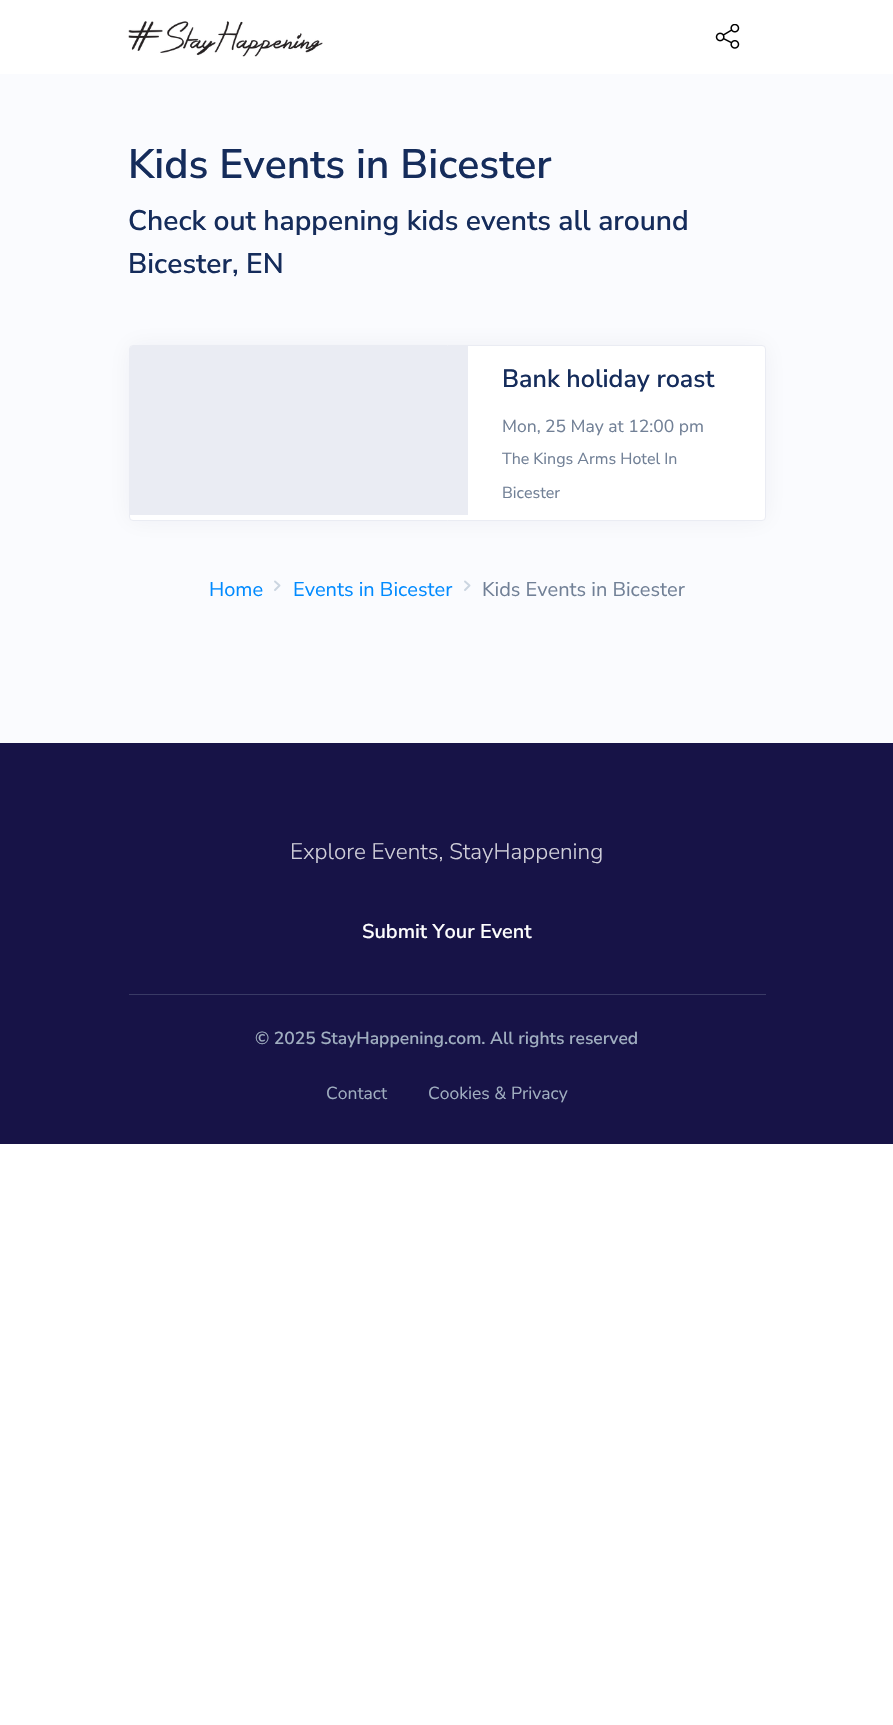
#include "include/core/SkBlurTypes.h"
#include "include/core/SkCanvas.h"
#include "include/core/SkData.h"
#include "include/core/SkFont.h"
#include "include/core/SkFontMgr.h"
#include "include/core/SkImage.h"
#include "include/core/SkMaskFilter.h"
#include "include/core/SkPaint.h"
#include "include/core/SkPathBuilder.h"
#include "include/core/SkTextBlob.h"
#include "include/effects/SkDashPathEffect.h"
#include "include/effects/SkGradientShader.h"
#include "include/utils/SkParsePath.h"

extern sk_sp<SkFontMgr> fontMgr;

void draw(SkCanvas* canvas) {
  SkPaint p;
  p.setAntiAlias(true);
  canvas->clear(SK_ColorWHITE);
  canvas->drawImageRect(SkImages::DeferredFromEncodedData(SkData::MakeFromFileName("images/1.png")), SkRect::MakeLTRB(128, 21, 323, 57), SkSamplingOptions());
  canvas->drawImageRect(SkImages::DeferredFromEncodedData(SkData::MakeFromFileName("images/2.png")), SkRect::MakeLTRB(715, 24, 740, 49), SkSamplingOptions());
  p.setColor(SkColorSetRGB(250, 251, 254));
  canvas->drawRect(SkRect::MakeLTRB(0, 74, 893, 743), p);
  p.setColor(SkColorSetARGB(13, 31, 45, 61));
  p.setMaskFilter(SkMaskFilter::MakeBlur(kNormal_SkBlurStyle, 12.5f));
  canvas->drawRoundRect(SkRect::MakeLTRB(129, 345, 766, 521), 4, 4, p);
  p.setMaskFilter(nullptr);
  p.setColor(SK_ColorWHITE);
  canvas->drawRoundRect(SkRect::MakeLTRB(129.5f, 345.5f, 765.5f, 520.5f), 3.5f, 3.5f, p);
  p.setStyle(SkPaint::kStroke_Style);
  p.setStrokeWidth(1);
  p.setColor(SkColorSetRGB(234, 236, 243));
  canvas->drawRoundRect(SkRect::MakeLTRB(129.5f, 345.5f, 765.5f, 520.5f), 3.5f, 3.5f, p);
  p.setStyle(SkPaint::kFill_Style);
  canvas->drawPath(SkPathBuilder().moveTo(132.5f, 346).lineTo(468, 346).lineTo(468, 515).lineTo(130, 515).lineTo(130, 348.5f).cubicTo(130, 347, 131, 346, 132.5f, 346).close().detach(), p);
  p.setStyle(SkPaint::kStroke_Style);
  p.setStrokeWidth(1.9f);
  p.setStrokeCap(SkPaint::kRound_Cap);
  p.setStrokeJoin(SkPaint::kRound_Join);
  p.setColor(SkColorSetRGB(203, 213, 224));
  canvas->drawPath(SkPathBuilder().moveTo(275, 590).lineTo(279.5f, 585.5f).lineTo(275, 581.5f).detach(), p);
  canvas->drawPath(SkPathBuilder().moveTo(465, 590).lineTo(469.5f, 585.5f).lineTo(465, 581.5f).detach(), p);
  p.setStyle(SkPaint::kFill_Style);
  p.setColor(SkColorSetRGB(23, 19, 71));
  canvas->drawRect(SkRect::MakeLTRB(0, 743, 893, 1144), p);
  p.setColor(SkColorSetRGB(57, 58, 101));
  canvas->drawRect(SkRect::MakeLTRB(129, 994, 766, 995), p);
  SkFont font1(fontMgr->matchFamilyStyle("Nunito Sans", SkFontStyle(600, SkFontStyle::kNormal_Width, SkFontStyle::kUpright_Slant)), 41);
  font1.setSubpixel(true);
  p.setColor(SkColorSetRGB(21, 44, 91));
  canvas->drawString("Kids Events in Bicester", 128, 178, font1, p);
  SkFont font2(fontMgr->matchFamilyStyle("Nunito Sans", SkFontStyle(600, SkFontStyle::kNormal_Width, SkFontStyle::kUpright_Slant)), 28.2f);
  font2.setSubpixel(true);
  canvas->drawString("Check out happening kids events all around", 128, 230, font2, p);
  canvas->drawString("Bicester, EN", 128, 273, font2, p);
  SkFont font3(fontMgr->matchFamilyStyle("Nunito Sans", SkFontStyle(600, SkFontStyle::kNormal_Width, SkFontStyle::kUpright_Slant)), 25);
  font3.setSubpixel(true);
  canvas->drawString("Bank holiday roast", 502, 387, font3, p);
  SkFont font4(fontMgr->matchFamilyStyle("Nunito Sans", SkFontStyle::Normal()), 17.5f);
  font4.setSubpixel(true);
  p.setColor(SkColorSetRGB(113, 128, 150));
  canvas->drawString("Mon, 25 May at 12:00 pm", 502, 432, font4, p);
  SkFont font5(fontMgr->matchFamilyStyle("Nunito Sans", SkFontStyle::Normal()), 16);
  font5.setSubpixel(true);
  canvas->drawString("The Kings Arms Hotel In", 502, 464, font5, p);
  canvas->drawString("Bicester", 502, 498, font5, p);
  SkFont font6(fontMgr->matchFamilyStyle("Nunito Sans", SkFontStyle::Normal()), 20);
  font6.setSubpixel(true);
  p.setColor(SkColorSetRGB(0, 138, 255));
  canvas->drawString("Home", 209, 596, font6, p);
  canvas->drawString("Events in Bicester", 293, 596, font6, p);
  p.setColor(SkColorSetRGB(113, 128, 150));
  canvas->drawString("Kids Events in Bicester", 482, 596, font6, p);
  SkFont font7(fontMgr->matchFamilyStyle("Nunito Sans", SkFontStyle(300, SkFontStyle::kNormal_Width, SkFontStyle::kUpright_Slant)), 22.5f);
  font7.setSubpixel(true);
  p.setColor(SkColorSetRGB(209, 208, 218));
  canvas->drawString("Explore Events, StayHappening", 290, 859, font7, p);
  SkFont font8(fontMgr->matchFamilyStyle("Nunito Sans", SkFontStyle(600, SkFontStyle::kNormal_Width, SkFontStyle::kUpright_Slant)), 20);
  font8.setSubpixel(true);
  p.setColor(SK_ColorWHITE);
  canvas->drawString("Submit Your Event", 362, 938, font8, p);
  SkFont font9(fontMgr->matchFamilyStyle("Nunito Sans", SkFontStyle(600, SkFontStyle::kNormal_Width, SkFontStyle::kUpright_Slant)), 17.5f);
  font9.setSubpixel(true);
  p.setColor(SkColorSetRGB(160, 174, 192));
  canvas->drawString("© 2025 StayHappening.com. All rights reserved", 255, 1044, font9, p);
  canvas->drawString("Contact", 326, 1099, font4, p);
  canvas->drawString("Cookies & Privacy", 428, 1099, font4, p);
}
